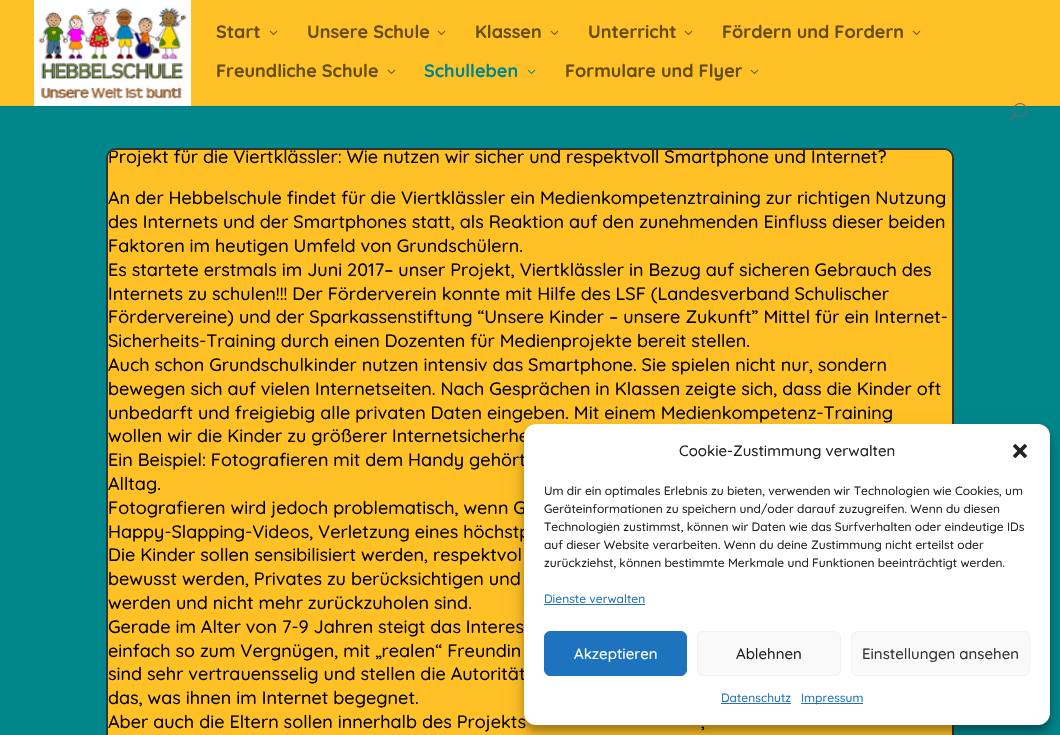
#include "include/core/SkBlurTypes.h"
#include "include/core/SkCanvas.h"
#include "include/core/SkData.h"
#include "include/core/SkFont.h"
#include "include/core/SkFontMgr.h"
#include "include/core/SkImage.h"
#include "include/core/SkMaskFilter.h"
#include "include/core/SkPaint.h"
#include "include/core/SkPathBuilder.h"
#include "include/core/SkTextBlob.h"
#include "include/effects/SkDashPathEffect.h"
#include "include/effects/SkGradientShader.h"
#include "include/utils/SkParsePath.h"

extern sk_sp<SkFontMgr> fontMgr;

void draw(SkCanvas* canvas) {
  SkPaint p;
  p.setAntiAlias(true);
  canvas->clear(SkColorSetRGB(0, 134, 139));
  p.setColor(SkColorSetRGB(0, 121, 125));
  canvas->drawRect(SkRect::MakeLTRB(0, 106, 1060, 107), p);
  p.setColor(SkColorSetRGB(255, 193, 37));
  canvas->drawRect(SkRect::MakeLTRB(0, 0, 1060, 106), p);
  canvas->drawImageRect(SkImages::DeferredFromEncodedData(SkData::MakeFromFileName("images/1.png")), SkRect::MakeLTRB(34, 0, 191, 106), SkSamplingOptions());
  canvas->drawImageRect(SkImages::DeferredFromEncodedData(SkData::MakeFromFileName("images/2.png")), SkRect::MakeLTRB(269, 30, 278, 35), SkSamplingOptions());
  canvas->drawImageRect(SkImages::DeferredFromEncodedData(SkData::MakeFromFileName("images/2.png")), SkRect::MakeLTRB(437, 30, 446, 35), SkSamplingOptions());
  canvas->drawImageRect(SkImages::DeferredFromEncodedData(SkData::MakeFromFileName("images/2.png")), SkRect::MakeLTRB(550, 30, 559, 35), SkSamplingOptions());
  canvas->drawImageRect(SkImages::DeferredFromEncodedData(SkData::MakeFromFileName("images/2.png")), SkRect::MakeLTRB(684, 30, 693, 35), SkSamplingOptions());
  canvas->drawImageRect(SkImages::DeferredFromEncodedData(SkData::MakeFromFileName("images/2.png")), SkRect::MakeLTRB(912, 30, 921, 35), SkSamplingOptions());
  canvas->drawImageRect(SkImages::DeferredFromEncodedData(SkData::MakeFromFileName("images/2.png")), SkRect::MakeLTRB(387, 69, 396, 74), SkSamplingOptions());
  canvas->drawImageRect(SkImages::DeferredFromEncodedData(SkData::MakeFromFileName("images/3.png")), SkRect::MakeLTRB(527, 69, 536, 74), SkSamplingOptions());
  canvas->drawImageRect(SkImages::DeferredFromEncodedData(SkData::MakeFromFileName("images/2.png")), SkRect::MakeLTRB(750, 69, 759, 74), SkSamplingOptions());
  canvas->drawImageRect(SkImages::DeferredFromEncodedData(SkData::MakeFromFileName("images/4.png")), SkRect::MakeLTRB(1010, 103, 1027, 120), SkSamplingOptions());
  p.setStyle(SkPaint::kStroke_Style);
  p.setStrokeWidth(2);
  p.setColor(SkColorSetRGB(51, 51, 51));
  canvas->drawRoundRect(SkRect::MakeLTRB(107, 149, 953, 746), 9, 9, p);
  p.setStyle(SkPaint::kFill_Style);
  p.setColor(SkColorSetRGB(255, 193, 37));
  canvas->drawPath(SkPathBuilder().moveTo(116, 150).lineTo(944, 150).cubicTo(948.5f, 150, 952, 153.5f, 952, 158).lineTo(952, 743).lineTo(108, 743).lineTo(108, 158).cubicTo(108, 153.5f, 111.5f, 150, 116, 150).close().detach(), p);
  p.setColor(SkColorSetARGB(59, 0, 0, 0));
  p.setMaskFilter(SkMaskFilter::MakeBlur(kNormal_SkBlurStyle, 3));
  canvas->drawRoundRect(SkRect::MakeLTRB(524, 430, 1050, 731), 12, 12, p);
  p.setMaskFilter(nullptr);
  p.setColor(SkColorSetARGB(48, 0, 0, 0));
  p.setMaskFilter(SkMaskFilter::MakeBlur(kNormal_SkBlurStyle, 10));
  canvas->drawRoundRect(SkRect::MakeLTRB(524, 434, 1050, 735), 12, 12, p);
  p.setMaskFilter(nullptr);
  SkFont font1(fontMgr->matchFamilyStyle("Quicksand", SkFontStyle::Bold()), 18);
  font1.setSubpixel(true);
  p.setColor(SkColorSetRGB(102, 77, 15));
  canvas->drawString("Start", 216, 38, font1, p);
  canvas->drawString("Unsere Schule", 307, 38, font1, p);
  canvas->drawString("Klassen", 475, 38, font1, p);
  canvas->drawString("Unterricht", 588, 38, font1, p);
  canvas->drawString("Fördern und Fordern", 722, 38, font1, p);
  canvas->drawString("Freundliche Schule", 216, 77, font1, p);
  p.setColor(SkColorSetRGB(0, 134, 139));
  canvas->drawString("Schulleben", 424, 77, font1, p);
  p.setColor(SkColorSetRGB(102, 77, 15));
  canvas->drawString("Formulare und Flyer", 565, 77, font1, p);
  canvas->save();
  canvas->clipPath(SkPathBuilder().moveTo(116, 150).lineTo(944, 150).cubicTo(948.5f, 150, 952, 153.5f, 952, 158).lineTo(952, 948).cubicTo(952, 952.5f, 948.5f, 956, 944, 956).lineTo(116, 956).cubicTo(111.5f, 956, 108, 952.5f, 108, 948).lineTo(108, 158).cubicTo(108, 153.5f, 111.5f, 150, 116, 150).close().detach(), true);
  SkFont font2(fontMgr->matchFamilyStyle("Quicksand", SkFontStyle(500, SkFontStyle::kNormal_Width, SkFontStyle::kUpright_Slant)), 18);
  font2.setSubpixel(true);
  p.setColor(SK_ColorBLACK);
  canvas->drawString("Projekt für die Viertklässler: Wie nutzen wir sicher und respektvoll Smartphone und Internet?", 108, 163, font2, p);
  canvas->restore();
  canvas->drawString("An der Hebbelschule findet für die Viertklässler ein Medienkompetenztraining zur richtigen Nutzung", 108, 204, font2, p);
  canvas->drawString("des Internets und der Smartphones statt, als Reaktion auf den zunehmenden Einfluss dieser beiden", 108, 228, font2, p);
  canvas->drawString("Faktoren im heutigen Umfeld von Grundschülern.", 108, 252, font2, p);
  canvas->drawString("Es startete erstmals im Juni 2017– unser Projekt, Viertklässler in Bezug auf sicheren Gebrauch des", 108, 276, font2, p);
  canvas->drawString("Internets zu schulen!!! Der Förderverein konnte mit Hilfe des LSF (Landesverband Schulischer", 108, 300, font2, p);
  canvas->drawString("Fördervereine) und der Sparkassenstiftung “Unsere Kinder – unsere Zukunft” Mittel für ein Internet-", 108, 323, font2, p);
  canvas->drawString("Sicherheits-Training durch einen Dozenten für Medienprojekte bereit stellen.", 108, 347, font2, p);
  canvas->drawString("Auch schon Grundschulkinder nutzen intensiv das Smartphone. Sie spielen nicht nur, sondern", 108, 371, font2, p);
  canvas->drawString("bewegen sich auf vielen Internetseiten. Nach Gesprächen in Klassen zeigte sich, dass die Kinder oft", 108, 395, font2, p);
  canvas->drawString("unbedarft und freigiebig alle privaten Daten eingeben. Mit einem Medienkompetenz-Training", 108, 419, font2, p);
  canvas->drawString("wollen wir die Kinder zu größerer Internetsicherhe", 108, 442, font2, p);
  canvas->drawString("Ein Beispiel: Fotografieren mit dem Handy gehört", 108, 466, font2, p);
  canvas->drawString("Alltag.", 108, 490, font2, p);
  canvas->drawString("Fotografieren wird jedoch problematisch, wenn G", 108, 514, font2, p);
  canvas->drawString("Happy-Slapping-Videos, Verletzung eines höchstp", 108, 538, font2, p);
  canvas->drawString("Die Kinder sollen sensibilisiert werden, respektvol", 108, 561, font2, p);
  canvas->drawString("bewusst werden, Privates zu berücksichtigen und", 108, 585, font2, p);
  canvas->drawString("werden und nicht mehr zurückzuholen sind.", 108, 609, font2, p);
  canvas->drawString("Gerade im Alter von 7-9 Jahren steigt das Interes", 108, 633, font2, p);
  canvas->drawString("einfach so zum Vergnügen, mit „realen“ Freundin", 108, 657, font2, p);
  canvas->drawString("sind sehr vertrauensselig und stellen die Autorität", 108, 680, font2, p);
  canvas->drawString("das, was ihnen im Internet begegnet.", 108, 704, font2, p);
  canvas->drawString("Aber auch die Eltern sollen innerhalb des Projekts", 108, 728, font2, p);
  canvas->drawString(",", 701, 728, font2, p);
  p.setColor(SK_ColorWHITE);
  canvas->drawRoundRect(SkRect::MakeLTRB(524, 424, 1050, 725), 12, 12, p);
  SkFont font3(fontMgr->matchFamilyStyle("Quicksand", SkFontStyle(500, SkFontStyle::kNormal_Width, SkFontStyle::kUpright_Slant)), 15);
  font3.setSubpixel(true);
  p.setColor(SkColorSetRGB(34, 34, 34));
  canvas->drawString("Cookie-Zustimmung verwalten", 679, 456, font3, p);
  canvas->drawImageRect(SkImages::DeferredFromEncodedData(SkData::MakeFromFileName("images/5.png")), SkRect::MakeLTRB(1013, 444, 1027, 458), SkSamplingOptions());
  SkFont font4(fontMgr->matchFamilyStyle("Quicksand", SkFontStyle(500, SkFontStyle::kNormal_Width, SkFontStyle::kUpright_Slant)), 12);
  font4.setSubpixel(true);
  canvas->drawString("Um dir ein optimales Erlebnis zu bieten, verwenden wir Technologien wie Cookies, um", 544, 495, font4, p);
  canvas->drawString("Geräteinformationen zu speichern und/oder darauf zuzugreifen. Wenn du diesen", 544, 513, font4, p);
  canvas->drawString("Technologien zustimmst, können wir Daten wie das Surfverhalten oder eindeutige IDs", 544, 531, font4, p);
  canvas->drawString("auf dieser Website verarbeiten. Wenn du deine Zustimmung nicht erteilst oder", 544, 549, font4, p);
  canvas->drawString("zurückziehst, können bestimmte Merkmale und Funktionen beeinträchtigt werden.", 544, 567, font4, p);
  p.setColor(SkColorSetRGB(30, 115, 190));
  canvas->drawString("Dienste verwalten", 544, 603, font4, p);
  canvas->drawRect(SkRect::MakeLTRB(544, 604, 645, 605), p);
  canvas->drawRoundRect(SkRect::MakeLTRB(544.5f, 631.5f, 686.5f, 675.5f), 5.5f, 5.5f, p);
  p.setStyle(SkPaint::kStroke_Style);
  p.setStrokeWidth(1);
  canvas->drawRoundRect(SkRect::MakeLTRB(544.5f, 631.5f, 686.5f, 675.5f), 5.5f, 5.5f, p);
  p.setStyle(SkPaint::kFill_Style);
  p.setColor(SK_ColorWHITE);
  canvas->drawString("Akzeptieren", 574, 659, font3, p);
  p.setColor(SkColorSetRGB(249, 249, 249));
  canvas->drawRoundRect(SkRect::MakeLTRB(697.5f, 631.5f, 840.5f, 675.5f), 5.5f, 5.5f, p);
  p.setStyle(SkPaint::kStroke_Style);
  p.setColor(SkColorSetRGB(242, 242, 242));
  canvas->drawRoundRect(SkRect::MakeLTRB(697.5f, 631.5f, 840.5f, 675.5f), 5.5f, 5.5f, p);
  p.setStyle(SkPaint::kFill_Style);
  p.setColor(SkColorSetRGB(34, 34, 34));
  canvas->drawString("Ablehnen", 736, 659, font3, p);
  p.setColor(SkColorSetRGB(249, 249, 249));
  canvas->drawRoundRect(SkRect::MakeLTRB(851.5f, 631.5f, 1029.5f, 675.5f), 5.5f, 5.5f, p);
  p.setStyle(SkPaint::kStroke_Style);
  p.setColor(SkColorSetRGB(242, 242, 242));
  canvas->drawRoundRect(SkRect::MakeLTRB(851.5f, 631.5f, 1029.5f, 675.5f), 5.5f, 5.5f, p);
  p.setStyle(SkPaint::kFill_Style);
  p.setColor(SkColorSetRGB(51, 51, 51));
  canvas->drawString("Einstellungen ansehen", 862, 659, font3, p);
  p.setColor(SkColorSetRGB(30, 115, 190));
  canvas->drawString("Datenschutz", 721, 702, font4, p);
  canvas->drawRect(SkRect::MakeLTRB(721, 703, 791, 704), p);
  canvas->drawRect(SkRect::MakeLTRB(801, 703, 863, 704), p);
  canvas->drawString("Impressum", 801, 702, font4, p);
}
